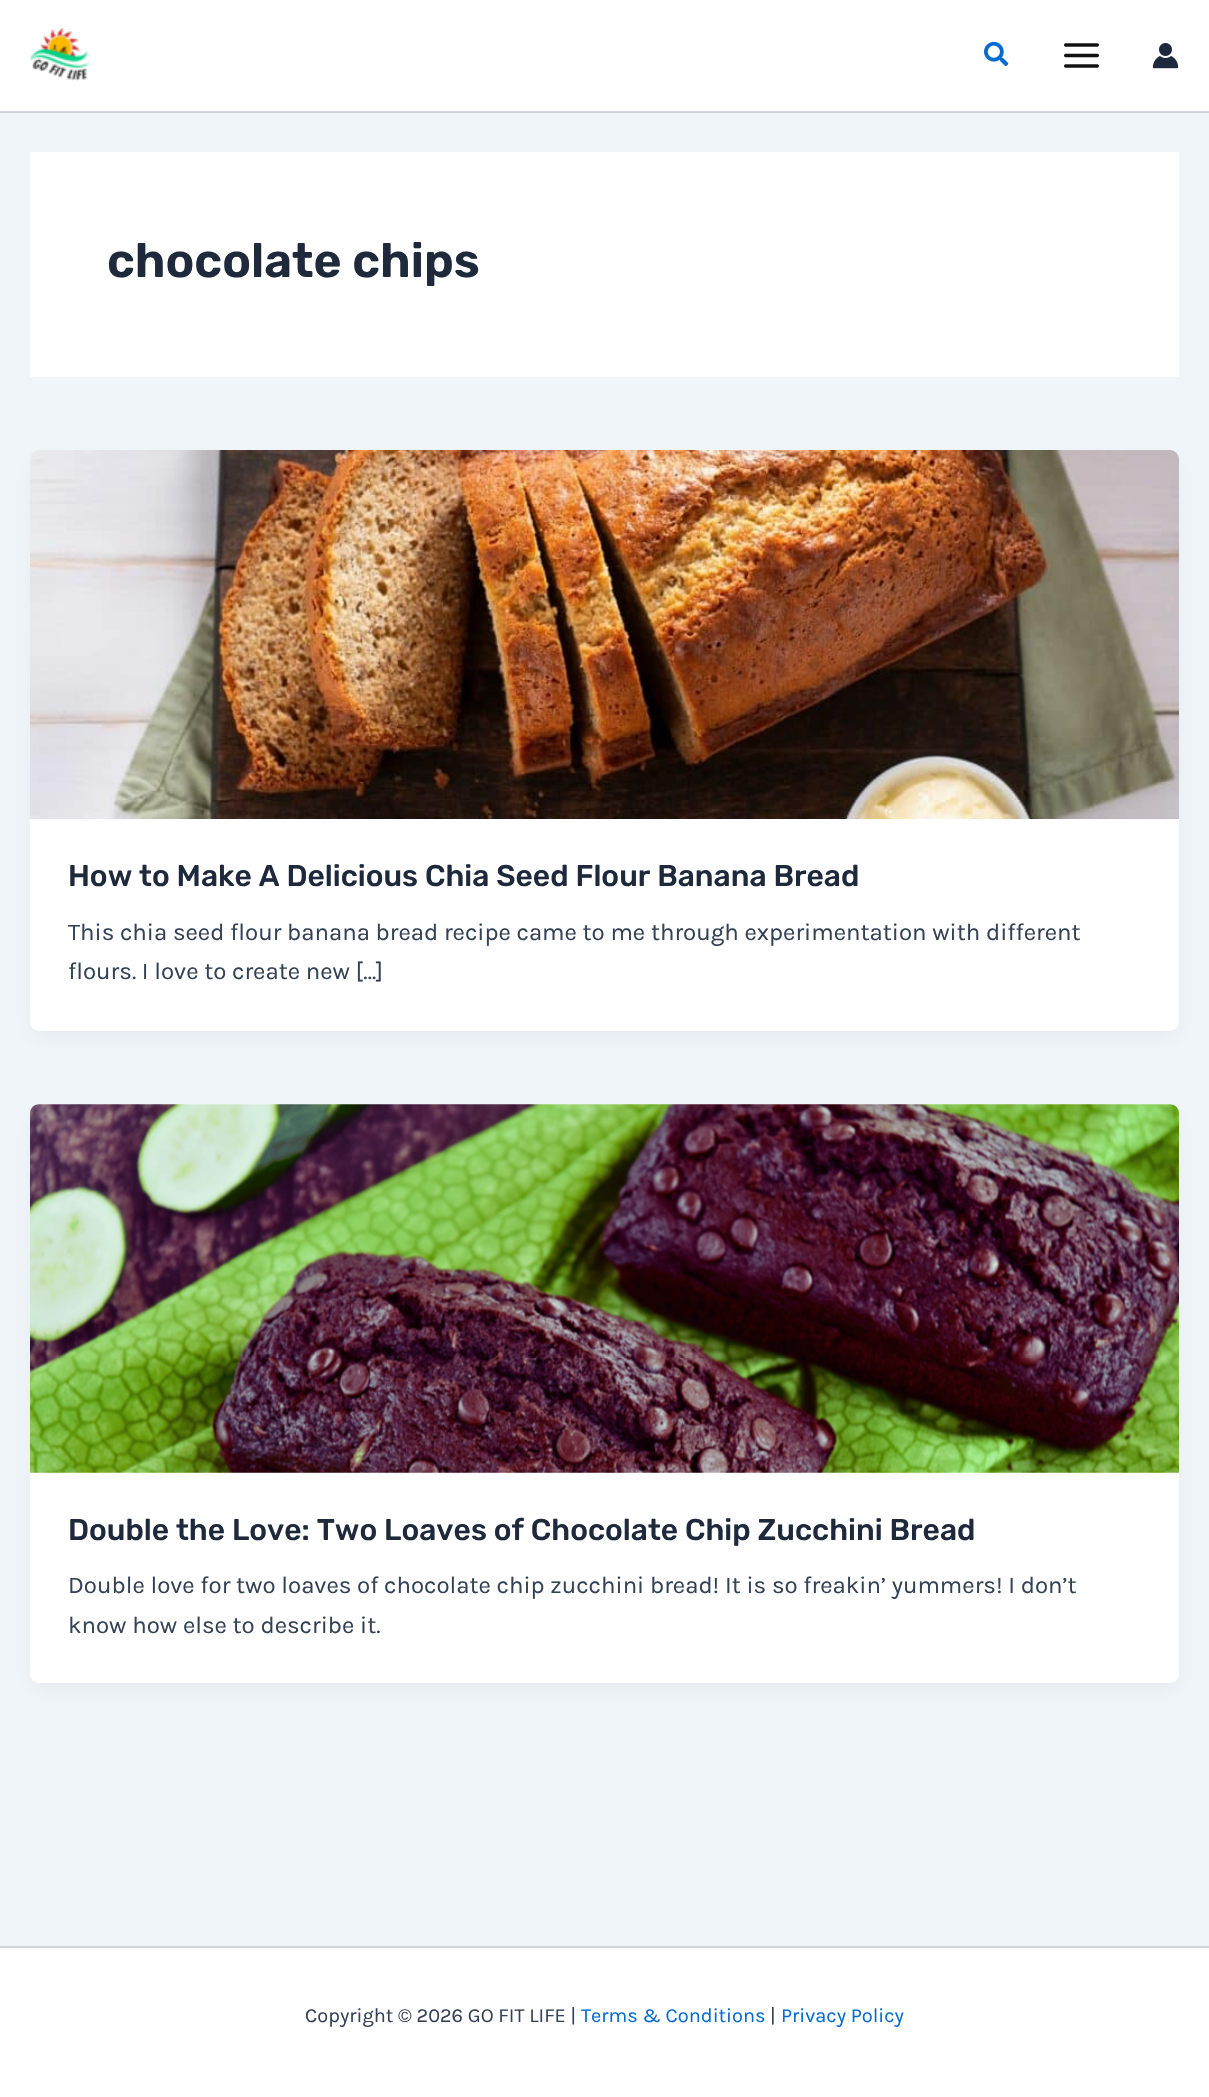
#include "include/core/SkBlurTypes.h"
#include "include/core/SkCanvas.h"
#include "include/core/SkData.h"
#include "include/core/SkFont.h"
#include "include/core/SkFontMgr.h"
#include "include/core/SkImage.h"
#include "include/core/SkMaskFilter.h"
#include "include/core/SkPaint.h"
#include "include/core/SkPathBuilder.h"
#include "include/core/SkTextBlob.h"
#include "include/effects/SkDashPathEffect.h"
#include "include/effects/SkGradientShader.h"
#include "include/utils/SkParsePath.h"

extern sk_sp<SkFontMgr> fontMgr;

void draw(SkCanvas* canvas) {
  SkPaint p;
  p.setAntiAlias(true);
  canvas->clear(SkColorSetRGB(240, 245, 250));
  p.setColor(SK_ColorWHITE);
  canvas->drawRect(SkRect::MakeLTRB(0, 0, 1209, 111), p);
  p.setColor(SkColorSetRGB(209, 213, 219));
  canvas->drawRect(SkRect::MakeLTRB(0, 111, 1209, 113), p);
  canvas->drawImageRect(SkImages::DeferredFromEncodedData(SkData::MakeFromFileName("images/1.png")), SkRect::MakeLTRB(30, 27, 90, 81), SkSamplingOptions());
  canvas->drawImageRect(SkImages::DeferredFromEncodedData(SkData::MakeFromFileName("images/2.png")), SkRect::MakeLTRB(984, 41, 1009, 67), SkSamplingOptions());
  canvas->drawImageRect(SkImages::DeferredFromEncodedData(SkData::MakeFromFileName("images/3.png")), SkRect::MakeLTRB(1064, 43, 1099, 68), SkSamplingOptions());
  canvas->drawImageRect(SkImages::DeferredFromEncodedData(SkData::MakeFromFileName("images/4.png")), SkRect::MakeLTRB(1152, 43, 1179, 69), SkSamplingOptions());
  p.setColor(SK_ColorWHITE);
  canvas->drawRect(SkRect::MakeLTRB(30, 152, 1179, 377), p);
  p.setColor(SkColorSetARGB(13, 16, 24, 40));
  p.setMaskFilter(SkMaskFilter::MakeBlur(kNormal_SkBlurStyle, 11));
  canvas->drawRoundRect(SkRect::MakeLTRB(33, 462, 1176, 1037), 6, 6, p);
  p.setMaskFilter(nullptr);
  p.setColor(SK_ColorWHITE);
  canvas->drawRoundRect(SkRect::MakeLTRB(30, 450, 1179, 1031), 9, 9, p);
  canvas->drawImageRect(SkImages::DeferredFromEncodedData(SkData::MakeFromFileName("images/5.png")), SkRect::MakeLTRB(30, 450, 1179, 819), SkSamplingOptions());
  p.setColor(SkColorSetARGB(13, 16, 24, 40));
  p.setMaskFilter(SkMaskFilter::MakeBlur(kNormal_SkBlurStyle, 11));
  canvas->drawRoundRect(SkRect::MakeLTRB(33, 1116, 1176, 1689), 6, 6, p);
  p.setMaskFilter(nullptr);
  p.setColor(SK_ColorWHITE);
  canvas->drawRoundRect(SkRect::MakeLTRB(30, 1104, 1179, 1683), 9, 9, p);
  canvas->drawImageRect(SkImages::DeferredFromEncodedData(SkData::MakeFromFileName("images/6.png")), SkRect::MakeLTRB(30, 1104, 1179, 1473), SkSamplingOptions());
  canvas->drawRect(SkRect::MakeLTRB(0, 1948, 1209, 2097), p);
  p.setColor(SkColorSetRGB(209, 213, 219));
  canvas->drawRect(SkRect::MakeLTRB(0, 1946, 1209, 1948), p);
  SkFont font1(fontMgr->matchFamilyStyle("Rubik", SkFontStyle(600, SkFontStyle::kNormal_Width, SkFontStyle::kUpright_Slant)), 48);
  font1.setSubpixel(true);
  p.setColor(SkColorSetRGB(30, 41, 59));
  canvas->drawString("chocolate chips", 107, 277, font1, p);
  SkFont font2(fontMgr->matchFamilyStyle("Rubik", SkFontStyle(500, SkFontStyle::kNormal_Width, SkFontStyle::kUpright_Slant)), 30);
  font2.setSubpixel(true);
  canvas->drawString("How to Make A Delicious Chia Seed Flour Banana Bread", 68, 886, font2, p);
  SkFont font3(fontMgr->matchFamilyStyle("Karla", SkFontStyle::Normal()), 24);
  font3.setSubpixel(true);
  p.setColor(SkColorSetRGB(51, 65, 85));
  canvas->drawString("This chia seed flour banana bread recipe came to me through experimentation with different", 68, 940, font3, p);
  canvas->drawString("flours. I love to create new […]", 68, 979, font3, p);
  p.setColor(SkColorSetRGB(30, 41, 59));
  canvas->drawString("Double the Love: Two Loaves of Chocolate Chip Zucchini Bread", 68, 1540, font2, p);
  p.setColor(SkColorSetRGB(51, 65, 85));
  canvas->drawString("Double love for two loaves of chocolate chip zucchini bread! It is so freakin’ yummers! I don’t", 68, 1593, font3, p);
  canvas->drawString("know how else to describe it.", 68, 1633, font3, p);
  SkFont font4(fontMgr->matchFamilyStyle("Karla", SkFontStyle::Normal()), 20);
  font4.setSubpixel(true);
  canvas->drawString("Copyright © 2026 GO FIT LIFE |", 305, 2022, font4, p);
  p.setColor(SkColorSetRGB(4, 107, 210));
  canvas->drawString("Terms & Conditions", 581, 2022, font4, p);
  p.setColor(SkColorSetRGB(51, 65, 85));
  canvas->drawString("|", 770, 2022, font4, p);
  p.setColor(SkColorSetRGB(4, 107, 210));
  canvas->drawString("Privacy Policy", 781, 2022, font4, p);
}
